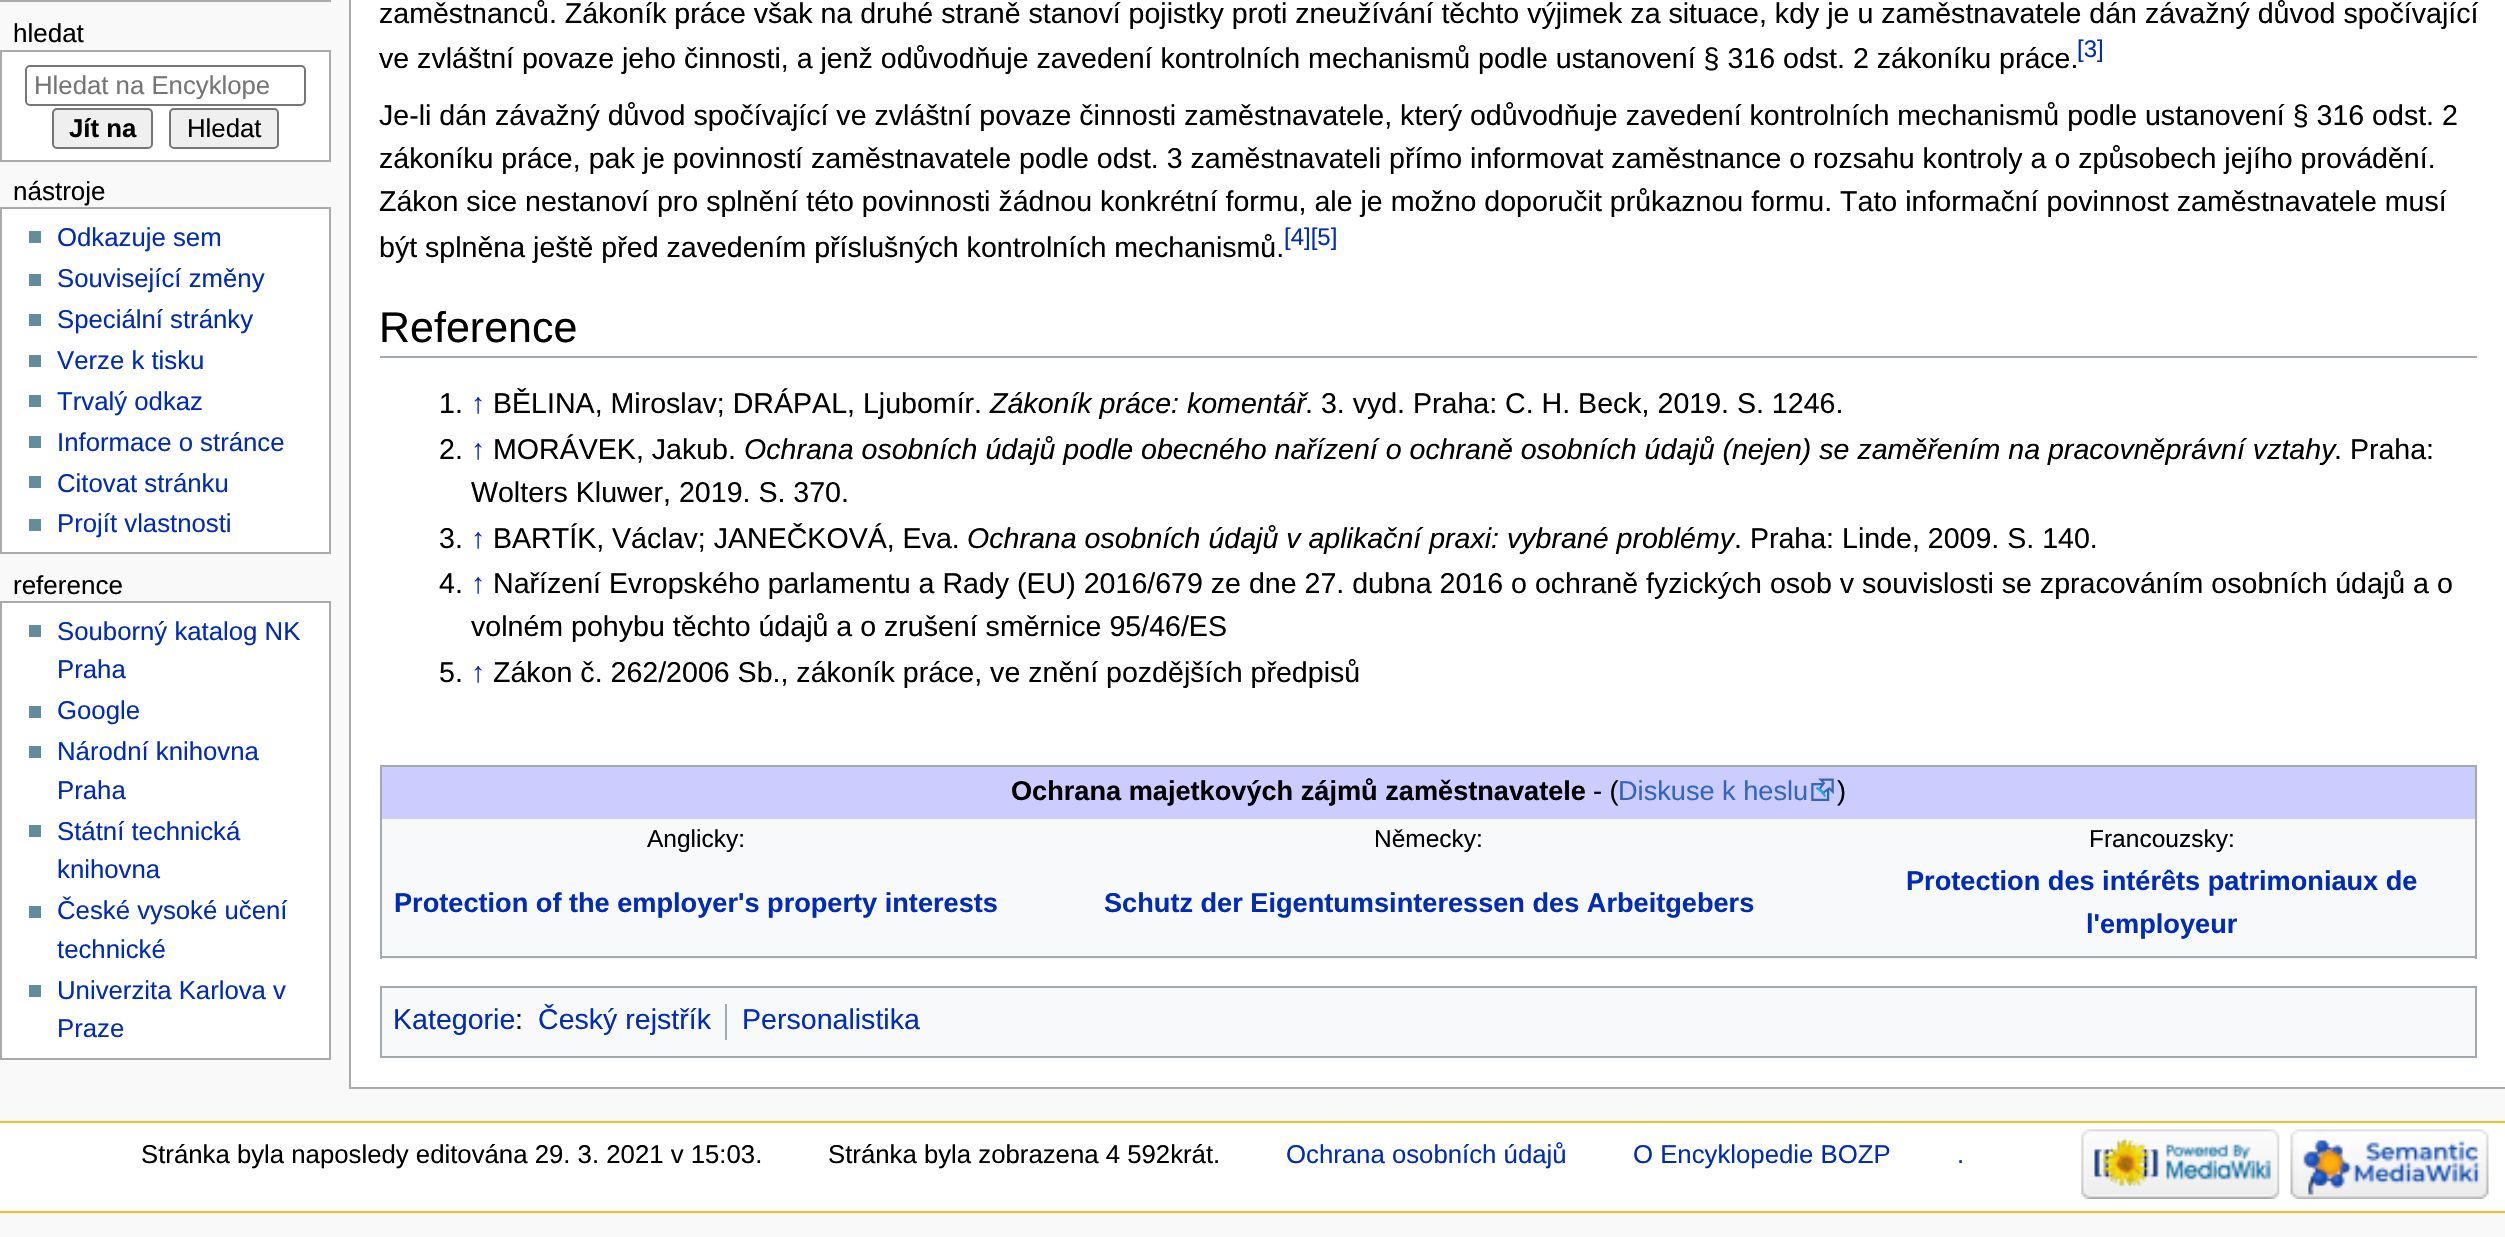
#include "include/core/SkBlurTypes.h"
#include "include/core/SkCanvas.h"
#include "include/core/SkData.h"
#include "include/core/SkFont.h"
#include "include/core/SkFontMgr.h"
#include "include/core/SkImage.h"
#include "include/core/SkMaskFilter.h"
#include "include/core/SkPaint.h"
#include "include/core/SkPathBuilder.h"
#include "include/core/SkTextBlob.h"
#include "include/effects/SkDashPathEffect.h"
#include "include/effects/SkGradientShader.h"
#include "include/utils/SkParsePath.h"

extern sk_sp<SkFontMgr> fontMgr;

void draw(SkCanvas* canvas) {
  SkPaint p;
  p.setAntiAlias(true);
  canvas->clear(SkColorSetRGB(249, 249, 249));
  p.setStyle(SkPaint::kStroke_Style);
  p.setStrokeWidth(2);
  p.setColor(SkColorSetRGB(170, 170, 170));
  canvas->drawRect(SkRect::MakeLTRB(1, -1, 330, 1), p);
  p.setStyle(SkPaint::kFill_Style);
  p.setColor(SK_ColorWHITE);
  canvas->drawRect(SkRect::MakeLTRB(1, 51, 330, 161), p);
  p.setStyle(SkPaint::kStroke_Style);
  p.setColor(SkColorSetRGB(170, 170, 170));
  canvas->drawRect(SkRect::MakeLTRB(1, 51, 330, 161), p);
  p.setColor(SkColorSetRGB(118, 118, 118));
  canvas->drawRoundRect(SkRect::MakeLTRB(26, 66, 305, 105), 4, 4, p);
  p.setStyle(SkPaint::kFill_Style);
  p.setColor(SkColorSetRGB(239, 239, 239));
  canvas->drawRoundRect(SkRect::MakeLTRB(53, 109, 152, 148), 4, 4, p);
  p.setStyle(SkPaint::kStroke_Style);
  p.setColor(SkColorSetRGB(118, 118, 118));
  canvas->drawRoundRect(SkRect::MakeLTRB(53, 109, 152, 148), 4, 4, p);
  p.setStyle(SkPaint::kFill_Style);
  p.setColor(SkColorSetRGB(239, 239, 239));
  canvas->drawRoundRect(SkRect::MakeLTRB(170, 109, 278, 148), 4, 4, p);
  p.setStyle(SkPaint::kStroke_Style);
  p.setColor(SkColorSetRGB(118, 118, 118));
  canvas->drawRoundRect(SkRect::MakeLTRB(170, 109, 278, 148), 4, 4, p);
  p.setStyle(SkPaint::kFill_Style);
  p.setColor(SK_ColorWHITE);
  canvas->drawRect(SkRect::MakeLTRB(1, 208, 330, 553), p);
  p.setStyle(SkPaint::kStroke_Style);
  p.setColor(SkColorSetRGB(170, 170, 170));
  canvas->drawRect(SkRect::MakeLTRB(1, 208, 330, 553), p);
  p.setStyle(SkPaint::kFill_Style);
  p.setColor(SkColorSetRGB(99, 140, 156));
  canvas->drawRect(SkRect::MakeLTRB(29, 231, 41, 243), p);
  canvas->drawRect(SkRect::MakeLTRB(29, 274, 41, 286), p);
  canvas->drawRect(SkRect::MakeLTRB(29, 314, 41, 326), p);
  canvas->drawRect(SkRect::MakeLTRB(29, 355, 41, 367), p);
  canvas->drawRect(SkRect::MakeLTRB(29, 395, 41, 407), p);
  canvas->drawRect(SkRect::MakeLTRB(29, 436, 41, 448), p);
  canvas->drawRect(SkRect::MakeLTRB(29, 476, 41, 488), p);
  canvas->drawRect(SkRect::MakeLTRB(29, 519, 41, 531), p);
  p.setColor(SK_ColorWHITE);
  canvas->drawRect(SkRect::MakeLTRB(1, 602, 330, 1059), p);
  p.setStyle(SkPaint::kStroke_Style);
  p.setColor(SkColorSetRGB(170, 170, 170));
  canvas->drawRect(SkRect::MakeLTRB(1, 602, 330, 1059), p);
  p.setStyle(SkPaint::kFill_Style);
  p.setColor(SkColorSetRGB(99, 140, 156));
  canvas->drawRect(SkRect::MakeLTRB(29, 625, 41, 637), p);
  canvas->drawRect(SkRect::MakeLTRB(29, 706, 41, 718), p);
  canvas->drawRect(SkRect::MakeLTRB(29, 746, 41, 758), p);
  canvas->drawRect(SkRect::MakeLTRB(29, 825, 41, 837), p);
  canvas->drawRect(SkRect::MakeLTRB(29, 906, 41, 918), p);
  canvas->drawRect(SkRect::MakeLTRB(29, 985, 41, 997), p);
  p.setColor(SK_ColorWHITE);
  canvas->drawRect(SkRect::MakeLTRB(351, 0, 2505, 1087), p);
  p.setColor(SkColorSetRGB(170, 170, 170));
  canvas->drawRect(SkRect::MakeLTRB(349, 1087, 2505, 1089), p);
  canvas->drawRect(SkRect::MakeLTRB(349, 0, 351, 1089), p);
  p.setColor(SkColorSetRGB(162, 169, 177));
  canvas->drawRect(SkRect::MakeLTRB(380, 356, 2477, 358), p);
  p.setColor(SkColorSetRGB(248, 249, 250));
  canvas->drawRect(SkRect::MakeLTRB(382, 819, 2475, 959), p);
  p.setColor(SkColorSetRGB(162, 169, 177));
  canvas->drawRect(SkRect::MakeLTRB(380, 765, 2477, 767), p);
  canvas->drawRect(SkRect::MakeLTRB(2475, 765, 2477, 959), p);
  canvas->drawRect(SkRect::MakeLTRB(380, 956, 2477, 958), p);
  canvas->drawRect(SkRect::MakeLTRB(380, 765, 382, 959), p);
  p.setColor(SkColorSetRGB(204, 204, 255));
  canvas->drawRect(SkRect::MakeLTRB(382, 767, 2475, 819), p);
  canvas->drawImageRect(SkImages::DeferredFromEncodedData(SkData::MakeFromFileName("images/1.png")), SkRect::MakeLTRB(1811, 778, 1834, 801), SkSamplingOptions());
  p.setColor(SkColorSetRGB(248, 249, 250));
  canvas->drawRect(SkRect::MakeLTRB(381, 987, 2476, 1057), p);
  p.setStyle(SkPaint::kStroke_Style);
  p.setColor(SkColorSetRGB(162, 169, 177));
  canvas->drawRect(SkRect::MakeLTRB(381, 987, 2476, 1057), p);
  p.setStyle(SkPaint::kFill_Style);
  canvas->drawRect(SkRect::MakeLTRB(725, 1004, 727, 1040), p);
  p.setColor(SK_ColorWHITE);
  canvas->drawRect(SkRect::MakeLTRB(0, 1123, 2505, 1211), p);
  p.setColor(SkColorSetRGB(250, 189, 35));
  canvas->drawRect(SkRect::MakeLTRB(0, 1121, 2505, 1123), p);
  canvas->drawRect(SkRect::MakeLTRB(0, 1211, 2505, 1213), p);
  canvas->drawImageRect(SkImages::DeferredFromEncodedData(SkData::MakeFromFileName("images/2.png")), SkRect::MakeLTRB(2081, 1129, 2280, 1199), SkSamplingOptions());
  canvas->drawImageRect(SkImages::DeferredFromEncodedData(SkData::MakeFromFileName("images/3.png")), SkRect::MakeLTRB(2290, 1129, 2489, 1199), SkSamplingOptions());
  SkFont font1(fontMgr->matchFamilyStyle("Liberation Sans", SkFontStyle::Normal()), 26);
  font1.setSubpixel(true);
  p.setColor(SK_ColorBLACK);
  canvas->drawString("hledat", 13, 42, font1, p);
  canvas->save();
  canvas->clipRect(SkRect::MakeLTRB(34, 72, 270, 99));
  SkFont font2(fontMgr->matchFamilyStyle("Liberation Sans", SkFontStyle::Normal()), 25.75f);
  font2.setSubpixel(true);
  p.setColor(SkColorSetRGB(117, 117, 117));
  canvas->drawString("Hledat na Encyklope", 34, 94, font2, p);
  canvas->restore();
  SkFont font3(fontMgr->matchFamilyStyle("Liberation Sans", SkFontStyle::Bold()), 25.75f);
  font3.setSubpixel(true);
  p.setColor(SK_ColorBLACK);
  canvas->drawString("Jít na", 69, 137, font3, p);
  canvas->drawString("Hledat", 187, 137, font2, p);
  canvas->drawString("nástroje", 13, 200, font1, p);
  p.setColor(SkColorSetRGB(0, 43, 184));
  canvas->drawString("Odkazuje sem", 57, 246, font2, p);
  canvas->drawString("Související změny", 57, 287, font2, p);
  canvas->drawString("Speciální stránky", 57, 328, font2, p);
  canvas->drawString("Verze k tisku", 57, 369, font2, p);
  canvas->drawString("Trvalý odkaz", 57, 410, font2, p);
  canvas->drawString("Informace o stránce", 57, 451, font2, p);
  canvas->drawString("Citovat stránku", 57, 492, font2, p);
  canvas->drawString("Projít vlastnosti", 57, 532, font2, p);
  p.setColor(SK_ColorBLACK);
  canvas->drawString("reference", 13, 594, font1, p);
  p.setColor(SkColorSetRGB(0, 43, 184));
  canvas->drawString("Souborný katalog NK", 57, 640, font2, p);
  canvas->drawString("Praha", 57, 678, font2, p);
  canvas->drawString("Google", 57, 719, font2, p);
  canvas->drawString("Národní knihovna", 57, 760, font2, p);
  canvas->drawString("Praha", 57, 799, font2, p);
  canvas->drawString("Státní technická", 57, 840, font2, p);
  canvas->drawString("knihovna", 57, 878, font2, p);
  canvas->drawString("České vysoké učení", 57, 919, font2, p);
  canvas->drawString("technické", 57, 958, font2, p);
  canvas->drawString("Univerzita Karlova v", 57, 999, font2, p);
  canvas->drawString("Praze", 57, 1037, font2, p);
  SkFont font4(fontMgr->matchFamilyStyle("Liberation Sans", SkFontStyle::Normal()), 28.57f);
  font4.setSubpixel(true);
  p.setColor(SK_ColorBLACK);
  canvas->drawString("zaměstnanců. Zákoník práce však na druhé straně stanoví pojistky proti zneužívání těchto výjimek za situace, kdy je u zaměstnavatele dán závažný důvod spočívající", 379, 23, font4, p);
  canvas->drawString("ve zvláštní povaze jeho činnosti, a jenž odůvodňuje zavedení kontrolních mechanismů podle ustanovení § 316 odst. 2 zákoníku práce.", 379, 68, font4, p);
  SkFont font5(fontMgr->matchFamilyStyle("Liberation Sans", SkFontStyle::Normal()), 24);
  font5.setSubpixel(true);
  p.setColor(SkColorSetRGB(0, 43, 184));
  canvas->drawString("[3]", 2077, 57, font5, p);
  p.setColor(SK_ColorBLACK);
  canvas->drawString("Je-li dán závažný důvod spočívající ve zvláštní povaze činnosti zaměstnavatele, který odůvodňuje zavedení kontrolních mechanismů podle ustanovení § 316 odst. 2", 379, 125, font4, p);
  canvas->drawString("zákoníku práce, pak je povinností zaměstnavatele podle odst. 3 zaměstnavateli přímo informovat zaměstnance o rozsahu kontroly a o způsobech jejího provádění.", 379, 168, font4, p);
  canvas->drawString("Zákon sice nestanoví pro splnění této povinnosti žádnou konkrétní formu, ale je možno doporučit průkaznou formu. Tato informační povinnost zaměstnavatele musí", 379, 211, font4, p);
  canvas->drawString("být splněna ještě před zavedením příslušných kontrolních mechanismů.", 379, 257, font4, p);
  p.setColor(SkColorSetRGB(0, 43, 184));
  canvas->drawString("[4][5]", 1284, 245, font5, p);
  SkFont font6(fontMgr->matchFamilyStyle("Liberation Sans", SkFontStyle::Normal()), 43);
  font6.setSubpixel(true);
  p.setColor(SK_ColorBLACK);
  canvas->drawString("Reference", 379, 342, font6, p);
  canvas->drawString("1.", 439, 413, font4, p);
  p.setColor(SkColorSetRGB(0, 43, 184));
  canvas->drawString("↑", 471, 413, font4, p);
  p.setColor(SK_ColorBLACK);
  canvas->drawString("BĚLINA, Miroslav; DRÁPAL, Ljubomír.", 493, 413, font4, p);
  SkFont font7(fontMgr->matchFamilyStyle("Liberation Sans", SkFontStyle::Italic()), 28.57f);
  font7.setSubpixel(true);
  canvas->drawString("Zákoník práce: komentář", 990, 413, font7, p);
  canvas->drawString(". 3. vyd. Praha: C. H. Beck, 2019. S. 1246.", 1305, 413, font4, p);
  canvas->drawString("2.", 439, 459, font4, p);
  p.setColor(SkColorSetRGB(0, 43, 184));
  canvas->drawString("↑", 471, 459, font4, p);
  p.setColor(SK_ColorBLACK);
  canvas->drawString("MORÁVEK, Jakub.", 493, 459, font4, p);
  canvas->drawString("Ochrana osobních údajů podle obecného nařízení o ochraně osobních údajů (nejen) se zaměřením na pracovněprávní vztahy", 744, 459, font7, p);
  canvas->drawString(". Praha:", 2334, 459, font4, p);
  canvas->drawString("Wolters Kluwer, 2019. S. 370.", 471, 502, font4, p);
  canvas->drawString("3.", 439, 548, font4, p);
  p.setColor(SkColorSetRGB(0, 43, 184));
  canvas->drawString("↑", 471, 548, font4, p);
  p.setColor(SK_ColorBLACK);
  canvas->drawString("BARTÍK, Václav; JANEČKOVÁ, Eva.", 493, 548, font4, p);
  canvas->drawString("Ochrana osobních údajů v aplikační praxi: vybrané problémy", 967, 548, font7, p);
  canvas->drawString(". Praha: Linde, 2009. S. 140.", 1734, 548, font4, p);
  canvas->drawString("4.", 439, 593, font4, p);
  p.setColor(SkColorSetRGB(0, 43, 184));
  canvas->drawString("↑", 471, 593, font4, p);
  p.setColor(SK_ColorBLACK);
  canvas->drawString("Nařízení Evropského parlamentu a Rady (EU) 2016/679 ze dne 27. dubna 2016 o ochraně fyzických osob v souvislosti se zpracováním osobních údajů a o", 493, 593, font4, p);
  canvas->drawString("volném pohybu těchto údajů a o zrušení směrnice 95/46/ES", 471, 636, font4, p);
  canvas->drawString("5.", 439, 682, font4, p);
  p.setColor(SkColorSetRGB(0, 43, 184));
  canvas->drawString("↑", 471, 682, font4, p);
  p.setColor(SK_ColorBLACK);
  canvas->drawString("Zákon č. 262/2006 Sb., zákoník práce, ve znění pozdějších předpisů", 493, 682, font4, p);
  SkFont font8(fontMgr->matchFamilyStyle("Liberation Sans", SkFontStyle::Bold()), 27.15f);
  font8.setSubpixel(true);
  canvas->drawString("Ochrana majetkových zájmů zaměstnavatele", 1011, 800, font8, p);
  SkFont font9(fontMgr->matchFamilyStyle("Liberation Sans", SkFontStyle::Normal()), 27.15f);
  font9.setSubpixel(true);
  canvas->drawString("- (", 1593, 800, font9, p);
  p.setColor(SkColorSetRGB(51, 102, 187));
  canvas->drawString("Diskuse k heslu", 1618, 800, font9, p);
  p.setColor(SK_ColorBLACK);
  canvas->drawString(")", 1837, 800, font9, p);
  SkFont font10(fontMgr->matchFamilyStyle("Liberation Sans", SkFontStyle::Normal()), 24.5f);
  font10.setSubpixel(true);
  canvas->drawString("Anglicky:", 647, 847, font10, p);
  canvas->drawString("Německy:", 1374, 847, font10, p);
  canvas->drawString("Francouzsky:", 2089, 847, font10, p);
  p.setColor(SkColorSetRGB(0, 43, 184));
  canvas->drawString("Protection of the employer's property interests", 394, 912, font8, p);
  canvas->drawString("Schutz der Eigentumsinteressen des Arbeitgebers", 1104, 912, font8, p);
  canvas->drawString("Protection des intérêts patrimoniaux de", 1906, 890, font8, p);
  canvas->drawString("l'employeur", 2086, 933, font8, p);
  canvas->drawString("Kategorie", 393, 1029, font4, p);
  p.setColor(SK_ColorBLACK);
  canvas->drawString(":", 515, 1029, font4, p);
  p.setColor(SkColorSetRGB(0, 43, 184));
  canvas->drawString("Český rejstřík", 538, 1029, font4, p);
  canvas->drawString("Personalistika", 742, 1029, font4, p);
  p.setColor(SK_ColorBLACK);
  canvas->drawString("Stránka byla naposledy editována 29. 3. 2021 v 15:03.", 141, 1163, font2, p);
  canvas->drawString("Stránka byla zobrazena 4 592krát.", 828, 1163, font2, p);
  p.setColor(SkColorSetRGB(0, 43, 184));
  canvas->drawString("Ochrana osobních údajů", 1286, 1163, font2, p);
  canvas->drawString("O Encyklopedie BOZP", 1633, 1163, font2, p);
  canvas->drawString(".", 1957, 1163, font2, p);
}
